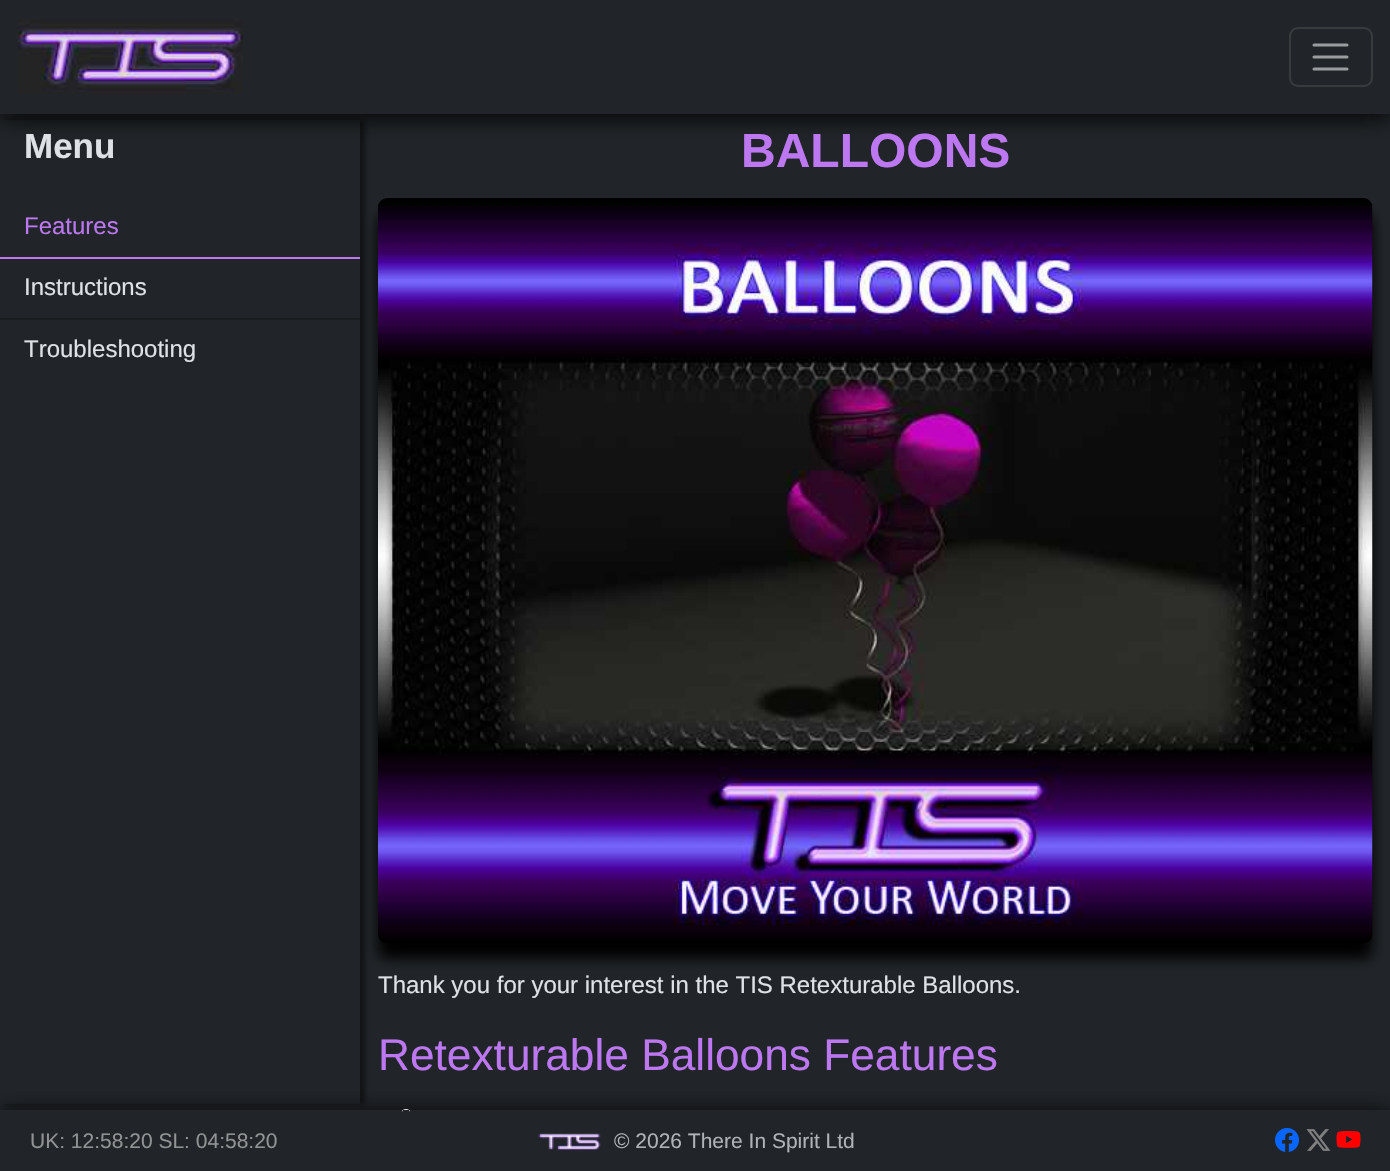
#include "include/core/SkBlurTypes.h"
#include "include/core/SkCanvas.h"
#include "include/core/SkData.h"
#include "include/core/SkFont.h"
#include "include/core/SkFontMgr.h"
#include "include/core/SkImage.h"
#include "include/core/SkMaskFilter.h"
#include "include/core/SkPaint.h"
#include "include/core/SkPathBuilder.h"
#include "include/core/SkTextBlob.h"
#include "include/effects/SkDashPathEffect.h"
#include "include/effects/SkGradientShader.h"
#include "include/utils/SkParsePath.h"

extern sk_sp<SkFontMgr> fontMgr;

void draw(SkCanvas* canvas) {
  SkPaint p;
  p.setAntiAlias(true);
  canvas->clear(SkColorSetRGB(33, 37, 41));
  canvas->save();
  canvas->clipRect(SkRect::MakeLTRB(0, 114, 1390, 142));
  p.setColor(SK_ColorBLACK);
  p.setMaskFilter(SkMaskFilter::MakeBlur(kNormal_SkBlurStyle, 12));
  canvas->drawRect(SkRect::MakeLTRB(0, 3, 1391, 117), p);
  p.setMaskFilter(nullptr);
  canvas->restore();
  canvas->drawImageRect(SkImages::DeferredFromEncodedData(SkData::MakeFromFileName("images/1.png")), SkRect::MakeLTRB(18, 19, 243, 94), SkSamplingOptions());
  p.setStyle(SkPaint::kStroke_Style);
  p.setStrokeWidth(2);
  p.setColor(SkColorSetRGB(55, 59, 62));
  canvas->drawRoundRect(SkRect::MakeLTRB(1290, 28, 1372, 86), 8, 8, p);
  p.setStrokeWidth(3);
  p.setStrokeCap(SkPaint::kRound_Cap);
  p.setColor(SkColorSetRGB(155, 157, 159));
  canvas->drawPath(SkPathBuilder().moveTo(1314, 45).lineTo(1347, 45).moveTo(1314, 57).lineTo(1347, 57).moveTo(1314, 69).lineTo(1347, 69).detach(), p);
  canvas->save();
  canvas->clipPath(SkPathBuilder(SkPathFillType::kEvenOdd).moveTo(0, 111).lineTo(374, 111).lineTo(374, 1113).lineTo(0, 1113).close().moveTo(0, 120).lineTo(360, 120).lineTo(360, 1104).lineTo(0, 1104).close().detach(), true);
  p.setStyle(SkPaint::kFill_Style);
  p.setColor(SkColorSetARGB(128, 0, 0, 0));
  p.setMaskFilter(SkMaskFilter::MakeBlur(kNormal_SkBlurStyle, 2.5f));
  canvas->drawRect(SkRect::MakeLTRB(5, 120, 365, 1104), p);
  p.setMaskFilter(nullptr);
  canvas->restore();
  p.setColor(SK_ColorBLACK);
  p.setMaskFilter(SkMaskFilter::MakeBlur(kNormal_SkBlurStyle, 7));
  canvas->drawRoundRect(SkRect::MakeLTRB(378, 213, 1373, 959), 9, 9, p);
  p.setMaskFilter(nullptr);
  p.setColor(SkColorSetRGB(188, 119, 241));
  canvas->drawRect(SkRect::MakeLTRB(0, 257, 360, 259), p);
  p.setColor(SkColorSetRGB(26, 29, 31));
  canvas->drawRect(SkRect::MakeLTRB(0, 318, 360, 320), p);
  canvas->drawImageRect(SkImages::DeferredFromEncodedData(SkData::MakeFromFileName("images/2.png")), SkRect::MakeLTRB(378, 198, 1373, 944), SkSamplingOptions());
  canvas->save();
  canvas->clipRect(SkRect::MakeLTRB(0, 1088, 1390, 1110));
  p.setColor(SK_ColorBLACK);
  p.setMaskFilter(SkMaskFilter::MakeBlur(kNormal_SkBlurStyle, 12));
  canvas->drawRect(SkRect::MakeLTRB(0, 1113, 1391, 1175), p);
  p.setMaskFilter(nullptr);
  canvas->restore();
  p.setColor(SkColorSetRGB(222, 226, 230));
  canvas->drawPath(SkPathBuilder().moveTo(405.5f, 1109).lineTo(406.5f, 1109).cubicTo(408.5f, 1109, 410, 1110.5f, 410, 1112.5f).lineTo(410, 1110).lineTo(402, 1110).lineTo(402, 1112.5f).cubicTo(402, 1110.5f, 403.5f, 1109, 405.5f, 1109).close().detach(), p);
  canvas->drawImageRect(SkImages::DeferredFromEncodedData(SkData::MakeFromFileName("images/3.png")), SkRect::MakeLTRB(538, 1133, 601, 1151), SkSamplingOptions());
  canvas->drawImageRect(SkImages::DeferredFromEncodedData(SkData::MakeFromFileName("images/4.png")), SkRect::MakeLTRB(1275, 1128, 1299, 1152), SkSamplingOptions());
  canvas->drawImageRect(SkImages::DeferredFromEncodedData(SkData::MakeFromFileName("images/5.png")), SkRect::MakeLTRB(1306, 1129, 1331, 1151), SkSamplingOptions());
  canvas->drawImageRect(SkImages::DeferredFromEncodedData(SkData::MakeFromFileName("images/6.png")), SkRect::MakeLTRB(1336, 1130, 1361, 1148), SkSamplingOptions());
  SkFont font1(fontMgr->matchFamilyStyle("Liberation Sans", SkFontStyle::Bold()), 35);
  font1.setSubpixel(true);
  canvas->drawString("Menu", 24, 158, font1, p);
  SkFont font2(fontMgr->matchFamilyStyle("Liberation Sans", SkFontStyle::Normal()), 24);
  font2.setSubpixel(true);
  p.setColor(SkColorSetRGB(188, 119, 241));
  canvas->drawString("Features", 24, 234, font2, p);
  p.setColor(SkColorSetRGB(222, 226, 230));
  canvas->drawString("Instructions", 24, 295, font2, p);
  canvas->drawString("Troubleshooting", 24, 357, font2, p);
  SkFont font3(fontMgr->matchFamilyStyle("Liberation Sans", SkFontStyle::Bold()), 48);
  font3.setSubpixel(true);
  p.setColor(SkColorSetRGB(188, 119, 241));
  canvas->drawString("BALLOONS", 741, 167, font3, p);
  p.setColor(SkColorSetRGB(222, 226, 230));
  canvas->drawString("Thank you for your interest in the TIS Retexturable Balloons.", 378, 993, font2, p);
  SkFont font4(fontMgr->matchFamilyStyle("Liberation Sans", SkFontStyle::Normal()), 44.25f);
  font4.setSubpixel(true);
  p.setColor(SkColorSetRGB(188, 119, 241));
  canvas->drawString("Retexturable Balloons Features", 378, 1070, font4, p);
  SkFont font5(fontMgr->matchFamilyStyle("Liberation Sans", SkFontStyle::Normal()), 21);
  font5.setSubpixel(true);
  p.setColor(SkColorSetRGB(144, 146, 148));
  canvas->drawString("UK: 12:58:20 SL: 04:58:20", 30, 1148, font5, p);
  p.setColor(SkColorSetRGB(175, 179, 183));
  canvas->drawString("© 2026 There In Spirit Ltd", 614, 1148, font5, p);
}
